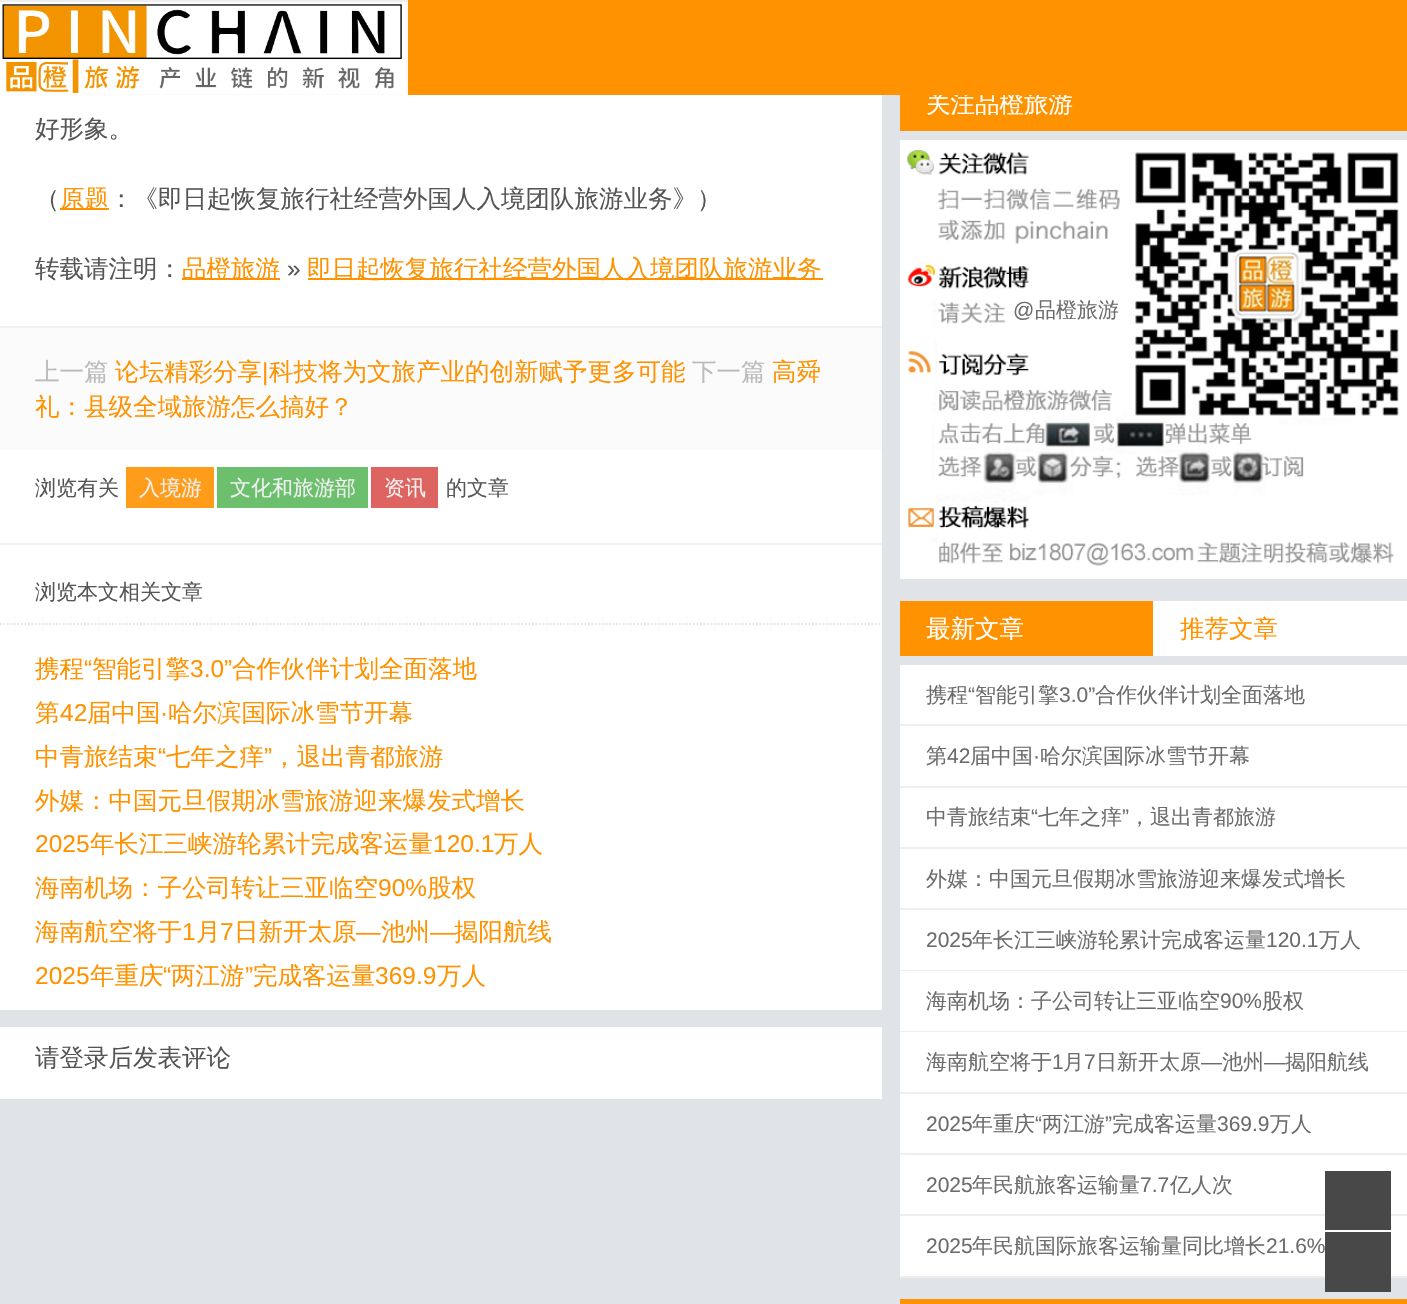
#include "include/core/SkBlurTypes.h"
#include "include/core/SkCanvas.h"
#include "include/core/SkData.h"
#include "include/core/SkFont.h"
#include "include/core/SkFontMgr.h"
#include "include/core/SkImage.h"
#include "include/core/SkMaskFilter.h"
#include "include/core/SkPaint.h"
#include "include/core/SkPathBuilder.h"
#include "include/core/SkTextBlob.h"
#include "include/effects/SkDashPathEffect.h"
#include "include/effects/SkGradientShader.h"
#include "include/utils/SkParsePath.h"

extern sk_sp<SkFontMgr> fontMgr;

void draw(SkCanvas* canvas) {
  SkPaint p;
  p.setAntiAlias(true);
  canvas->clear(SkColorSetRGB(224, 228, 233));
  p.setColor(SkColorSetRGB(238, 238, 238));
  canvas->drawRect(SkRect::MakeLTRB(0, 0, 408, 95), p);
  canvas->drawImageRect(SkImages::DeferredFromEncodedData(SkData::MakeFromFileName("images/1.png")), SkRect::MakeLTRB(0, 2, 408, 95), SkSamplingOptions());
  p.setColor(SK_ColorWHITE);
  canvas->drawRect(SkRect::MakeLTRB(0, 95, 882, 326), p);
  p.setColor(SkColorSetRGB(255, 146, 0));
  canvas->drawRect(SkRect::MakeLTRB(60, 208, 109, 210), p);
  canvas->drawRect(SkRect::MakeLTRB(182, 278, 280, 280), p);
  canvas->drawRect(SkRect::MakeLTRB(308, 278, 823, 280), p);
  p.setColor(SkColorSetRGB(251, 251, 251));
  canvas->drawRect(SkRect::MakeLTRB(0, 328, 882, 450), p);
  p.setColor(SkColorSetRGB(242, 242, 242));
  canvas->drawRect(SkRect::MakeLTRB(0, 326, 882, 328), p);
  p.setColor(SK_ColorWHITE);
  canvas->drawRect(SkRect::MakeLTRB(0, 450, 882, 543), p);
  p.setColor(SkColorSetRGB(255, 157, 26));
  canvas->drawRect(SkRect::MakeLTRB(126, 467, 214, 508), p);
  p.setColor(SkColorSetRGB(108, 191, 108));
  canvas->drawRect(SkRect::MakeLTRB(217, 467, 368, 508), p);
  p.setColor(SkColorSetRGB(221, 100, 97));
  canvas->drawRect(SkRect::MakeLTRB(371, 467, 438, 508), p);
  p.setColor(SK_ColorWHITE);
  canvas->drawRect(SkRect::MakeLTRB(0, 545, 882, 1010), p);
  p.setColor(SkColorSetRGB(242, 242, 242));
  canvas->drawRect(SkRect::MakeLTRB(0, 543, 882, 545), p);
  p.setStyle(SkPaint::kStroke_Style);
  p.setStrokeWidth(1.8f);
  p.setColor(SkColorSetRGB(228, 228, 228));
  p.setPathEffect(SkDashPathEffect::Make({{1.75f, 1.75f}}, 0));
  canvas->drawPath(SkPathBuilder().moveTo(0, 624).lineTo(882, 624).detach(), p);
  p.setPathEffect(nullptr);
  p.setStyle(SkPaint::kFill_Style);
  p.setColor(SK_ColorWHITE);
  canvas->drawRect(SkRect::MakeLTRB(0, 1027, 882, 1099), p);
  canvas->drawRect(SkRect::MakeLTRB(900, 140, 1407, 579), p);
  p.setColor(SkColorSetRGB(255, 146, 0));
  canvas->drawRect(SkRect::MakeLTRB(900, 95, 1407, 131), p);
  canvas->drawImageRect(SkImages::DeferredFromEncodedData(SkData::MakeFromFileName("images/2.png")), SkRect::MakeLTRB(907, 150, 1399, 566), SkSamplingOptions());
  p.setColor(SK_ColorWHITE);
  canvas->drawRect(SkRect::MakeLTRB(900, 601, 1407, 1276), p);
  p.setColor(SkColorSetRGB(255, 146, 0));
  canvas->drawRect(SkRect::MakeLTRB(900, 601, 1153, 656), p);
  p.setColor(SkColorSetRGB(224, 228, 233));
  canvas->drawRect(SkRect::MakeLTRB(900, 656, 1407, 665), p);
  canvas->save();
  canvas->clipRect(SkRect::MakeLTRB(900, 0, 1407, 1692));
  p.setColor(SkColorSetRGB(238, 238, 238));
  canvas->drawPath(SkPathBuilder().moveTo(1407, 726).lineTo(894, 726).lineTo(900, 724).lineTo(1407, 724).close().detach(), p);
  canvas->drawPath(SkPathBuilder().moveTo(1407, 788).lineTo(894, 788).lineTo(900, 786).lineTo(1407, 786).close().detach(), p);
  canvas->drawPath(SkPathBuilder().moveTo(1407, 849).lineTo(894, 849).lineTo(900, 847).lineTo(1407, 847).close().detach(), p);
  canvas->drawPath(SkPathBuilder().moveTo(1407, 910).lineTo(894, 910).lineTo(900, 908).lineTo(1407, 908).close().detach(), p);
  canvas->drawPath(SkPathBuilder().moveTo(1407, 971).lineTo(894, 971).lineTo(900, 970).lineTo(1407, 970).close().detach(), p);
  canvas->drawPath(SkPathBuilder().moveTo(1407, 1032).lineTo(894, 1032).lineTo(900, 1031).lineTo(1407, 1031).close().detach(), p);
  canvas->drawPath(SkPathBuilder().moveTo(1407, 1094).lineTo(894, 1094).lineTo(900, 1092).lineTo(1407, 1092).close().detach(), p);
  canvas->drawPath(SkPathBuilder().moveTo(1407, 1155).lineTo(894, 1155).lineTo(900, 1153).lineTo(1407, 1153).close().detach(), p);
  canvas->drawPath(SkPathBuilder().moveTo(1407, 1216).lineTo(894, 1216).lineTo(900, 1214).lineTo(1407, 1214).close().detach(), p);
  canvas->drawPath(SkPathBuilder().moveTo(1407, 1278).lineTo(894, 1278).lineTo(900, 1276).lineTo(1407, 1276).close().detach(), p);
  canvas->restore();
  p.setColor(SkColorSetRGB(255, 146, 0));
  canvas->drawRect(SkRect::MakeLTRB(900, 1299, 1407, 1304), p);
  p.setColor(SkColorSetRGB(72, 72, 72));
  canvas->drawRect(SkRect::MakeLTRB(1325, 1171, 1391, 1230), p);
  SkFont font1(fontMgr->matchFamilyStyle("WenQuanYi Zen Hei", SkFontStyle(500, SkFontStyle::kNormal_Width, SkFontStyle::kUpright_Slant)), 24.5f);
  font1.setSubpixel(true);
  p.setColor(SkColorSetRGB(85, 85, 85));
  canvas->drawString("好形象。", 35, 137, font1, p);
  canvas->drawString("（", 35, 207, font1, p);
  p.setColor(SkColorSetRGB(255, 146, 0));
  canvas->drawString("原题", 60, 207, font1, p);
  p.setColor(SkColorSetRGB(85, 85, 85));
  canvas->drawString("：《即日起恢复旅行社经营外国人入境团队旅游业务》）", 109, 207, font1, p);
  canvas->drawString("转载请注明：", 35, 277, font1, p);
  p.setColor(SkColorSetRGB(255, 146, 0));
  canvas->drawString("品橙旅游", 182, 277, font1, p);
  SkFont font2(fontMgr->matchFamilyStyle("Liberation Sans", SkFontStyle::Normal()), 24.5f);
  font2.setSubpixel(true);
  p.setColor(SkColorSetRGB(85, 85, 85));
  canvas->drawString("»", 287, 277, font2, p);
  p.setColor(SkColorSetRGB(255, 146, 0));
  canvas->drawString("即日起恢复旅行社经营外国人入境团队旅游业务", 307, 277, font1, p);
  p.setColor(SkColorSetRGB(187, 187, 187));
  canvas->drawString("上一篇", 35, 380, font1, p);
  p.setColor(SkColorSetRGB(255, 146, 0));
  canvas->drawString("论坛精彩分享", 115, 380, font1, p);
  canvas->drawString("|", 262, 380, font2, p);
  canvas->drawString("科技将为文旅产业的创新赋予更多可能", 269, 380, font1, p);
  p.setColor(SkColorSetRGB(187, 187, 187));
  canvas->drawString("下一篇", 692, 380, font1, p);
  p.setColor(SkColorSetRGB(255, 146, 0));
  canvas->drawString("高舜", 772, 380, font1, p);
  canvas->drawString("礼：县级全域旅游怎么搞好？", 35, 415, font1, p);
  SkFont font3(fontMgr->matchFamilyStyle("WenQuanYi Zen Hei", SkFontStyle(500, SkFontStyle::kNormal_Width, SkFontStyle::kUpright_Slant)), 21);
  font3.setSubpixel(true);
  p.setColor(SkColorSetRGB(85, 85, 85));
  canvas->drawString("浏览有关", 35, 495, font3, p);
  p.setColor(SkColorSetRGB(240, 240, 240));
  canvas->drawString("入境游", 139, 495, font3, p);
  canvas->drawString("文化和旅游部", 230, 495, font3, p);
  canvas->drawString("资讯", 384, 495, font3, p);
  p.setColor(SkColorSetRGB(85, 85, 85));
  canvas->drawString("的文章", 446, 495, font3, p);
  canvas->drawString("浏览本文相关文章", 35, 599, font3, p);
  p.setColor(SkColorSetRGB(255, 146, 0));
  canvas->drawString("携程", 35, 677, font1, p);
  canvas->drawString("“", 84, 677, font2, p);
  canvas->drawString("智能引擎", 92, 677, font1, p);
  canvas->drawString("3.0”", 190, 677, font2, p);
  canvas->drawString("合作伙伴计划全面落地", 232, 677, font1, p);
  canvas->drawString("第", 35, 721, font1, p);
  canvas->drawString("42", 60, 721, font2, p);
  canvas->drawString("届中国", 87, 721, font1, p);
  canvas->drawString("·", 160, 721, font2, p);
  canvas->drawString("哈尔滨国际冰雪节开幕", 168, 721, font1, p);
  canvas->drawString("中青旅结束", 35, 765, font1, p);
  canvas->drawString("“", 158, 765, font2, p);
  canvas->drawString("七年之痒", 166, 765, font1, p);
  canvas->drawString("”", 264, 765, font2, p);
  canvas->drawString("，退出青都旅游", 272, 765, font1, p);
  canvas->drawString("外媒：中国元旦假期冰雪旅游迎来爆发式增长", 35, 809, font1, p);
  canvas->drawString("2025", 35, 852, font2, p);
  canvas->drawString("年长江三峡游轮累计完成客运量", 90, 852, font1, p);
  canvas->drawString("120.1", 433, 852, font2, p);
  canvas->drawString("万人", 494, 852, font1, p);
  canvas->drawString("海南机场：子公司转让三亚临空", 35, 896, font1, p);
  canvas->drawString("90%", 378, 896, font2, p);
  canvas->drawString("股权", 427, 896, font1, p);
  canvas->drawString("海南航空将于", 35, 940, font1, p);
  canvas->drawString("1", 182, 940, font2, p);
  canvas->drawString("月", 196, 940, font1, p);
  canvas->drawString("7", 220, 940, font2, p);
  canvas->drawString("日新开太原", 234, 940, font1, p);
  canvas->drawString("—", 356, 940, font2, p);
  canvas->drawString("池州", 381, 940, font1, p);
  canvas->drawString("—", 430, 940, font2, p);
  canvas->drawString("揭阳航线", 454, 940, font1, p);
  canvas->drawString("2025", 35, 984, font2, p);
  canvas->drawString("年重庆", 90, 984, font1, p);
  canvas->drawString("“", 163, 984, font2, p);
  canvas->drawString("两江游", 171, 984, font1, p);
  canvas->drawString("”", 245, 984, font2, p);
  canvas->drawString("完成客运量", 253, 984, font1, p);
  canvas->drawString("369.9", 375, 984, font2, p);
  canvas->drawString("万人", 437, 984, font1, p);
  p.setColor(SkColorSetRGB(85, 85, 85));
  canvas->drawString("请登录后发表评论", 35, 1066, font1, p);
  p.setColor(SK_ColorWHITE);
  canvas->drawString("关注品橙旅游", 926, 112, font1, p);
  p.setColor(SkColorSetRGB(255, 146, 0));
  canvas->drawRect(SkRect::MakeLTRB(408, 0, 1407, 95), p);
  SkFont font4(fontMgr->matchFamilyStyle("Liberation Sans", SkFontStyle::Normal()), 21);
  font4.setSubpixel(true);
  p.setColor(SkColorSetRGB(108, 108, 108));
  canvas->drawString("@", 1013, 317, font4, p);
  canvas->drawString("品橙旅游", 1035, 317, font3, p);
  p.setColor(SK_ColorWHITE);
  canvas->drawString("最新文章", 926, 637, font1, p);
  p.setColor(SkColorSetRGB(255, 146, 0));
  canvas->drawString("推荐文章", 1180, 637, font1, p);
  p.setColor(SkColorSetRGB(108, 108, 108));
  canvas->drawString("携程", 926, 702, font3, p);
  canvas->drawString("“", 968, 702, font4, p);
  canvas->drawString("智能引擎", 975, 702, font3, p);
  canvas->drawString("3.0”", 1059, 702, font4, p);
  canvas->drawString("合作伙伴计划全面落地", 1095, 702, font3, p);
  canvas->drawString("第", 926, 763, font3, p);
  canvas->drawString("42", 947, 763, font4, p);
  canvas->drawString("届中国", 970, 763, font3, p);
  canvas->drawString("·", 1033, 763, font4, p);
  canvas->drawString("哈尔滨国际冰雪节开幕", 1040, 763, font3, p);
  canvas->drawString("中青旅结束", 926, 824, font3, p);
  canvas->drawString("“", 1031, 824, font4, p);
  canvas->drawString("七年之痒", 1038, 824, font3, p);
  canvas->drawString("”", 1122, 824, font4, p);
  canvas->drawString("，退出青都旅游", 1129, 824, font3, p);
  canvas->drawString("外媒：中国元旦假期冰雪旅游迎来爆发式增长", 926, 886, font3, p);
  canvas->drawString("2025", 926, 947, font4, p);
  canvas->drawString("年长江三峡游轮累计完成客运量", 972, 947, font3, p);
  canvas->drawString("120.1", 1266, 947, font4, p);
  canvas->drawString("万人", 1319, 947, font3, p);
  canvas->drawString("海南机场：子公司转让三亚临空", 926, 1008, font3, p);
  canvas->drawString("90%", 1220, 1008, font4, p);
  canvas->drawString("股权", 1262, 1008, font3, p);
  canvas->drawString("海南航空将于", 926, 1069, font3, p);
  canvas->drawString("1", 1052, 1069, font4, p);
  canvas->drawString("月", 1063, 1069, font3, p);
  canvas->drawString("7", 1084, 1069, font4, p);
  canvas->drawString("日新开太原", 1096, 1069, font3, p);
  canvas->drawString("—", 1201, 1069, font4, p);
  canvas->drawString("池州", 1222, 1069, font3, p);
  canvas->drawString("—", 1264, 1069, font4, p);
  canvas->drawString("揭阳航线", 1285, 1069, font3, p);
  canvas->drawString("2025", 926, 1131, font4, p);
  canvas->drawString("年重庆", 972, 1131, font3, p);
  canvas->drawString("“", 1035, 1131, font4, p);
  canvas->drawString("两江游", 1042, 1131, font3, p);
  canvas->drawString("”", 1105, 1131, font4, p);
  canvas->drawString("完成客运量", 1112, 1131, font3, p);
  canvas->drawString("369.9", 1217, 1131, font4, p);
  canvas->drawString("万人", 1270, 1131, font3, p);
  canvas->drawString("2025", 926, 1192, font4, p);
  canvas->drawString("年民航旅客运输量", 972, 1192, font3, p);
  canvas->drawString("7.7", 1140, 1192, font4, p);
  canvas->drawString("亿人次", 1170, 1192, font3, p);
  canvas->drawString("2025", 926, 1253, font4, p);
  canvas->drawString("年民航国际旅客运输量同比增长", 972, 1253, font3, p);
  canvas->drawString("21.6%", 1266, 1253, font4, p);
  p.setColor(SkColorSetRGB(72, 72, 72));
  canvas->drawRect(SkRect::MakeLTRB(1325, 1232, 1391, 1292), p);
}
